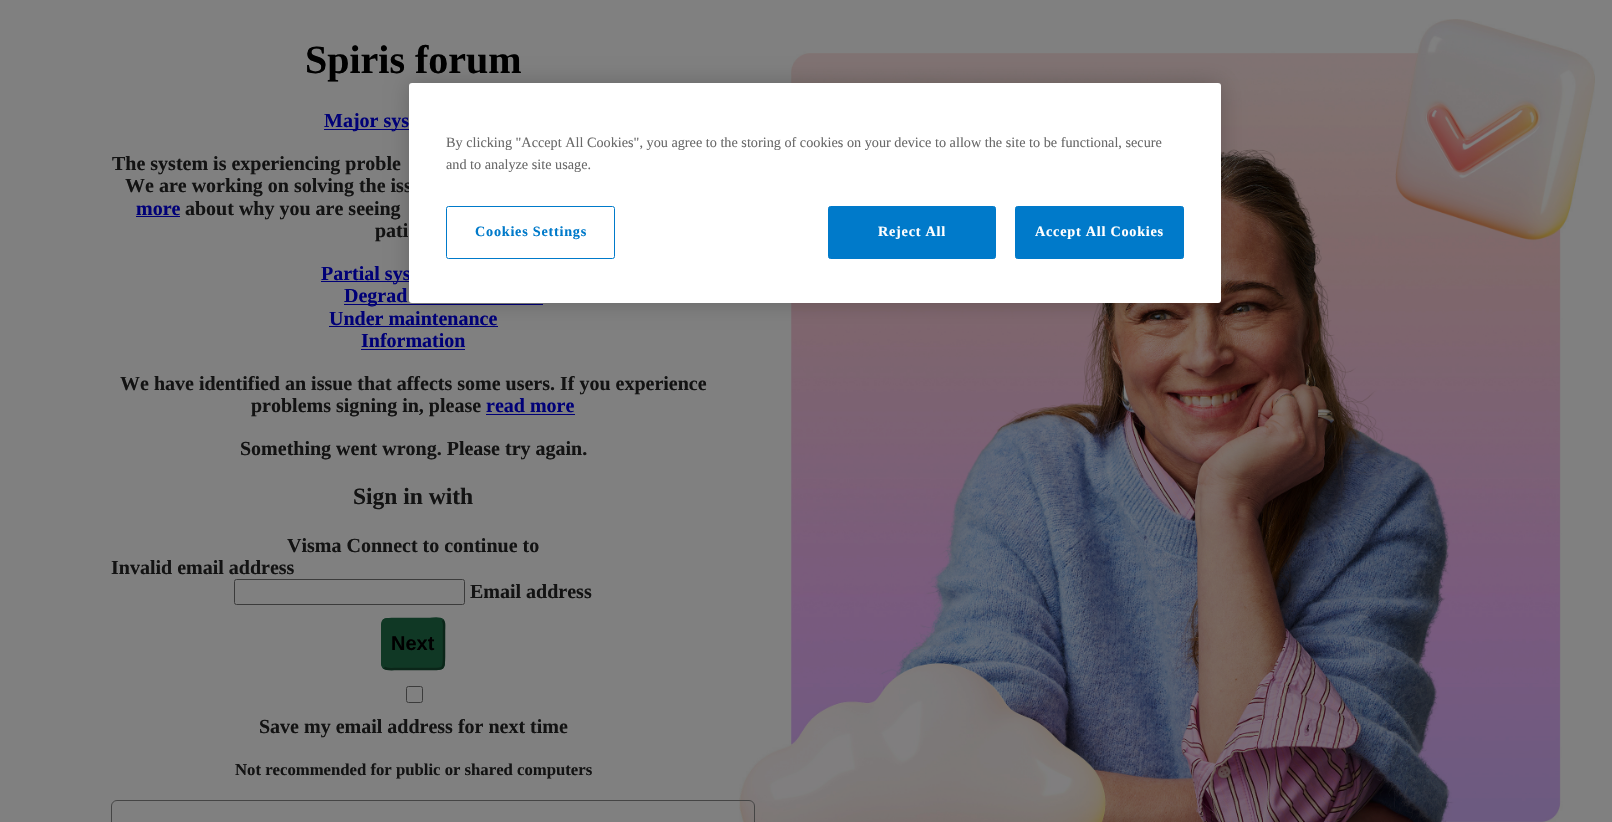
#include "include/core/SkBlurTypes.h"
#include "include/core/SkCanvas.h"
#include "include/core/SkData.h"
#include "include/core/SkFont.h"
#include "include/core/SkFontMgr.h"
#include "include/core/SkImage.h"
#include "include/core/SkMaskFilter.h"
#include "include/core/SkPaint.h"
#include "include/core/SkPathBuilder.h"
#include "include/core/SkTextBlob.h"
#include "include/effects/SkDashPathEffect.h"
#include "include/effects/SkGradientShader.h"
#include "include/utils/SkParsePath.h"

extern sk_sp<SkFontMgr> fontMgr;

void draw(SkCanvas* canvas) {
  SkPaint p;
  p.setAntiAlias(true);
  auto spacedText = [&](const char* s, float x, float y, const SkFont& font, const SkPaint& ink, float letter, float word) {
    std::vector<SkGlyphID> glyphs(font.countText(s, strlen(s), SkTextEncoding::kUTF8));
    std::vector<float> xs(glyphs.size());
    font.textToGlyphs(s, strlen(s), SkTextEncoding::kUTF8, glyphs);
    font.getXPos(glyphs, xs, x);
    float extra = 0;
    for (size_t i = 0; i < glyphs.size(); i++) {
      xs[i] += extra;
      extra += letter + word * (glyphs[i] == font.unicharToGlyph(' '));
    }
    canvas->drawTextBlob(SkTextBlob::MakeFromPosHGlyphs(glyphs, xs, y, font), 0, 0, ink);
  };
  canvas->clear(SkColorSetRGB(128, 128, 128));
  canvas->drawImageRect(SkImages::DeferredFromEncodedData(SkData::MakeFromFileName("images/1.png")), SkRect::MakeLTRB(739, 19, 1595, 822), SkSamplingOptions());
  p.setColor(SkColorSetRGB(0, 0, 119));
  canvas->drawRect(SkRect::MakeLTRB(324, 129, 409, 130), p);
  canvas->drawRect(SkRect::MakeLTRB(136, 216, 180, 217), p);
  canvas->drawRect(SkRect::MakeLTRB(321, 281, 409, 282), p);
  canvas->drawRect(SkRect::MakeLTRB(344, 304, 543, 305), p);
  canvas->drawRect(SkRect::MakeLTRB(329, 326, 498, 327), p);
  canvas->drawRect(SkRect::MakeLTRB(361, 349, 465, 350), p);
  canvas->drawRect(SkRect::MakeLTRB(486, 414, 575, 415), p);
  p.setStyle(SkPaint::kStroke_Style);
  p.setStrokeWidth(1);
  p.setColor(SkColorSetRGB(59, 59, 59));
  canvas->drawRoundRect(SkRect::MakeLTRB(234.5f, 579.5f, 464.5f, 604.5f), 2, 2, p);
  p.setStyle(SkPaint::kFill_Style);
  p.setColor(SkColorSetRGB(16, 56, 37));
  canvas->drawRoundRect(SkRect::MakeLTRB(381, 618, 445, 670), 6, 6, p);
  p.setStyle(SkPaint::kStroke_Style);
  p.setStrokeWidth(2.5f);
  p.setColor(SkColorSetRGB(11, 38, 25));
  canvas->drawPath(SkPathBuilder().moveTo(442.5f, 620).cubicTo(445, 622.5f, 444, 627.5f, 444, 630.5f).lineTo(444, 657).cubicTo(444, 670, 443, 669, 430, 669).lineTo(396, 669).cubicTo(393.5f, 669, 387, 670, 384, 667.5f).detach(), p);
  p.setColor(SkColorSetRGB(16, 56, 37));
  canvas->drawPath(SkPathBuilder().moveTo(384, 667.5f).cubicTo(381.5f, 665, 382.5f, 660, 382.5f, 657).lineTo(382.5f, 630.5f).cubicTo(382.5f, 617.5f, 383, 619, 396, 619).lineTo(430, 619).cubicTo(432.5f, 619, 439.5f, 617.5f, 442.5f, 620).detach(), p);
  p.setStrokeWidth(1);
  p.setColor(SkColorSetRGB(59, 59, 59));
  canvas->drawRoundRect(SkRect::MakeLTRB(406.5f, 686.5f, 422.5f, 702.5f), 2, 2, p);
  p.setColor(SkColorSetRGB(69, 69, 69));
  canvas->drawRoundRect(SkRect::MakeLTRB(111.5f, 800.5f, 754.5f, 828.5f), 5.5f, 5.5f, p);
  p.setStyle(SkPaint::kFill_Style);
  p.setColor(SkColorSetARGB(51, 0, 0, 0));
  p.setMaskFilter(SkMaskFilter::MakeBlur(kNormal_SkBlurStyle, 11));
  canvas->drawRoundRect(SkRect::MakeLTRB(409, 83, 1221, 303), 3, 3, p);
  p.setMaskFilter(nullptr);
  SkFont font1(fontMgr->matchFamilyStyle("Liberation Serif", SkFontStyle::Bold()), 40);
  font1.setSubpixel(true);
  p.setColor(SK_ColorBLACK);
  canvas->drawString("Spiris forum", 305, 73, font1, p);
  SkFont font2(fontMgr->matchFamilyStyle("Liberation Serif", SkFontStyle::Bold()), 20);
  font2.setSubpixel(true);
  p.setColor(SkColorSetRGB(0, 0, 119));
  canvas->drawString("Major sys", 324, 127, font2, p);
  p.setColor(SkColorSetRGB(19, 19, 19));
  canvas->drawString("The system is experiencing proble", 112, 170, font2, p);
  canvas->drawString("We are working on solving the iss", 125, 192, font2, p);
  p.setColor(SkColorSetRGB(0, 0, 119));
  canvas->drawString("more", 136, 215, font2, p);
  p.setColor(SkColorSetRGB(19, 19, 19));
  canvas->drawString("about why you are seeing", 185, 215, font2, p);
  canvas->drawString("pati", 375, 237, font2, p);
  p.setColor(SkColorSetRGB(0, 0, 119));
  canvas->drawString("Partial sys", 321, 280, font2, p);
  canvas->drawString("Degrad", 344, 302, font2, p);
  canvas->drawString("Under maintenance", 329, 325, font2, p);
  canvas->drawString("Information", 361, 347, font2, p);
  p.setColor(SkColorSetRGB(19, 19, 19));
  canvas->drawString("We have identified an issue that affects some users. If you experience", 120, 390, font2, p);
  canvas->drawString("problems signing in, please", 251, 412, font2, p);
  p.setColor(SkColorSetRGB(0, 0, 119));
  canvas->drawString("read more", 486, 412, font2, p);
  p.setColor(SkColorSetRGB(19, 19, 19));
  canvas->drawString("Something went wrong. Please try again.", 240, 455, font2, p);
  SkFont font3(fontMgr->matchFamilyStyle("Liberation Serif", SkFontStyle::Bold()), 23.5f);
  font3.setSubpixel(true);
  canvas->drawString("Sign in with", 353, 504, font3, p);
  canvas->drawString("Visma Connect to continue to", 287, 552, font2, p);
  canvas->drawString("Invalid email address", 111, 574, font2, p);
  canvas->drawString("Email address", 470, 598, font2, p);
  SkFont font4(fontMgr->matchFamilyStyle("Liberation Sans", SkFontStyle::Bold()), 20);
  font4.setSubpixel(true);
  p.setColor(SK_ColorBLACK);
  canvas->drawString("Next", 391, 650, font4, p);
  p.setColor(SkColorSetRGB(19, 19, 19));
  canvas->drawString("Save my email address for next time", 259, 733, font2, p);
  SkFont font5(fontMgr->matchFamilyStyle("Liberation Serif", SkFontStyle::Bold()), 16.7f);
  font5.setSubpixel(true);
  canvas->drawString("Not recommended for public or shared computers", 235, 775, font5, p);
  p.setColor(SK_ColorWHITE);
  canvas->drawRoundRect(SkRect::MakeLTRB(409, 83, 1221, 303), 3, 3, p);
  SkFont font6(fontMgr->matchFamilyStyle("Liberation Serif", SkFontStyle::Normal()), 14.23f);
  font6.setSubpixel(true);
  p.setColor(SkColorSetRGB(105, 105, 105));
  canvas->drawString("By clicking \"Accept All Cookies\", you agree to the storing of cookies on your device to allow the site to be functional, secure", 446, 147, font6, p);
  canvas->drawString("and to analyze site usage.", 446, 169, font6, p);
  p.setStyle(SkPaint::kStroke_Style);
  p.setColor(SkColorSetRGB(0, 122, 202));
  canvas->drawRoundRect(SkRect::MakeLTRB(446.5f, 206.5f, 614.5f, 258.5f), 2, 2, p);
  SkFont font7(fontMgr->matchFamilyStyle("Liberation Serif", SkFontStyle::Bold()), 14.23f);
  font7.setSubpixel(true);
  p.setStyle(SkPaint::kFill_Style);
  spacedText("Cookies Settings", 475, 236, font7, p, 0.75f, 0);
  canvas->drawRoundRect(SkRect::MakeLTRB(828.5f, 206.5f, 995.5f, 258.5f), 2, 2, p);
  p.setStyle(SkPaint::kStroke_Style);
  canvas->drawRoundRect(SkRect::MakeLTRB(828.5f, 206.5f, 995.5f, 258.5f), 2, 2, p);
  p.setStyle(SkPaint::kFill_Style);
  p.setColor(SK_ColorWHITE);
  spacedText("Reject All", 878, 236, font7, p, 0.75f, 0);
  p.setColor(SkColorSetRGB(0, 122, 202));
  canvas->drawRoundRect(SkRect::MakeLTRB(1015.5f, 206.5f, 1183.5f, 258.5f), 2, 2, p);
  p.setStyle(SkPaint::kStroke_Style);
  canvas->drawRoundRect(SkRect::MakeLTRB(1015.5f, 206.5f, 1183.5f, 258.5f), 2, 2, p);
  p.setStyle(SkPaint::kFill_Style);
  p.setColor(SK_ColorWHITE);
  spacedText("Accept All Cookies", 1035, 236, font7, p, 0.75f, 0);
}
